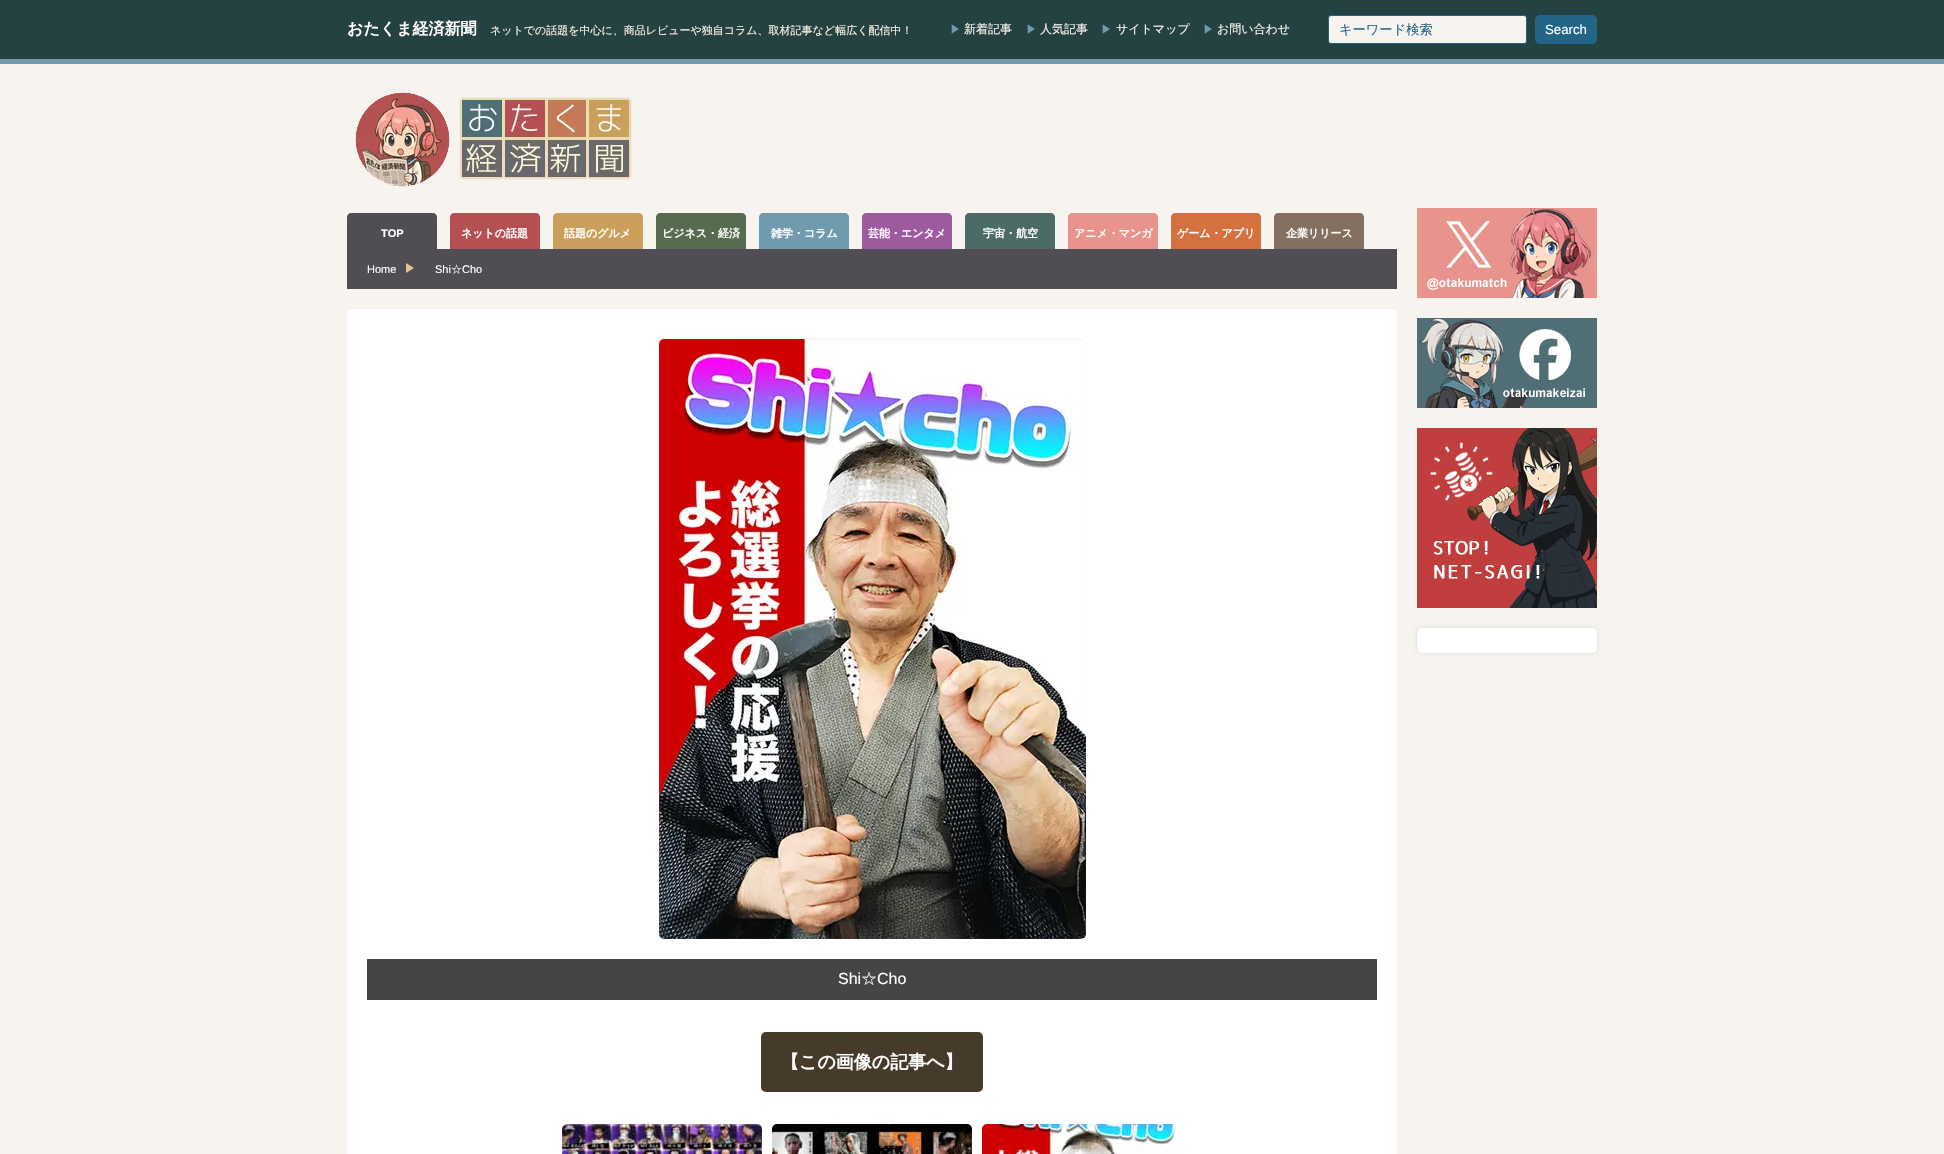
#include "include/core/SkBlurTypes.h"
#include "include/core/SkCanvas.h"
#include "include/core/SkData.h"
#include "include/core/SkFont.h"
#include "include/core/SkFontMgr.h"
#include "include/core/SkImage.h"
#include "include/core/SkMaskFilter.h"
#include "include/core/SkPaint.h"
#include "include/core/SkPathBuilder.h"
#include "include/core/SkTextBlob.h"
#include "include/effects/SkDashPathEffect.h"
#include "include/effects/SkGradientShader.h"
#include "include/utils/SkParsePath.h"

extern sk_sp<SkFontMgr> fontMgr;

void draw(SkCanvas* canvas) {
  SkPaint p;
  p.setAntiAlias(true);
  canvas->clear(SkColorSetRGB(247, 244, 239));
  p.setColor(SkColorSetRGB(37, 66, 66));
  canvas->drawRect(SkRect::MakeLTRB(0, 0, 1944, 59), p);
  p.setColor(SkColorSetRGB(112, 155, 172));
  canvas->drawRect(SkRect::MakeLTRB(0, 59, 1944, 64), p);
  p.setColor(SkColorSetRGB(247, 244, 239));
  canvas->drawRoundRect(SkRect::MakeLTRB(1328.5f, 15.5f, 1526.5f, 43.5f), 2.5f, 2.5f, p);
  p.setStyle(SkPaint::kStroke_Style);
  p.setStrokeWidth(1);
  p.setColor(SkColorSetRGB(35, 101, 134));
  canvas->drawRoundRect(SkRect::MakeLTRB(1328.5f, 15.5f, 1526.5f, 43.5f), 2.5f, 2.5f, p);
  p.setStyle(SkPaint::kFill_Style);
  canvas->drawRoundRect(SkRect::MakeLTRB(1535, 15, 1597, 44), 5, 5, p);
  canvas->drawImageRect(SkImages::DeferredFromEncodedData(SkData::MakeFromFileName("images/1.png")), SkRect::MakeLTRB(355, 92, 632, 187), SkSamplingOptions());
  p.setColor(SkColorSetRGB(80, 77, 84));
  canvas->drawPath(SkPathBuilder().moveTo(351, 213).lineTo(433, 213).cubicTo(435, 213, 437, 215, 437, 217).lineTo(437, 249).lineTo(347, 249).lineTo(347, 217).cubicTo(347, 215, 349, 213, 351, 213).close().detach(), p);
  p.setColor(SkColorSetRGB(181, 80, 82));
  canvas->drawPath(SkPathBuilder().moveTo(454, 213).lineTo(536, 213).cubicTo(538, 213, 540, 215, 540, 217).lineTo(540, 249).lineTo(450, 249).lineTo(450, 217).cubicTo(450, 215, 452, 213, 454, 213).close().detach(), p);
  p.setColor(SkColorSetRGB(202, 159, 92));
  canvas->drawPath(SkPathBuilder().moveTo(557, 213).lineTo(639, 213).cubicTo(641, 213, 643, 215, 643, 217).lineTo(643, 249).lineTo(553, 249).lineTo(553, 217).cubicTo(553, 215, 555, 213, 557, 213).close().detach(), p);
  p.setColor(SkColorSetRGB(86, 107, 79));
  canvas->drawPath(SkPathBuilder().moveTo(660, 213).lineTo(742, 213).cubicTo(744, 213, 746, 215, 746, 217).lineTo(746, 249).lineTo(656, 249).lineTo(656, 217).cubicTo(656, 215, 658, 213, 660, 213).close().detach(), p);
  p.setColor(SkColorSetRGB(112, 155, 172));
  canvas->drawPath(SkPathBuilder().moveTo(763, 213).lineTo(845, 213).cubicTo(847, 213, 849, 215, 849, 217).lineTo(849, 249).lineTo(759, 249).lineTo(759, 217).cubicTo(759, 215, 761, 213, 763, 213).close().detach(), p);
  p.setColor(SkColorSetRGB(158, 90, 158));
  canvas->drawPath(SkPathBuilder().moveTo(866, 213).lineTo(948, 213).cubicTo(950, 213, 952, 215, 952, 217).lineTo(952, 249).lineTo(862, 249).lineTo(862, 217).cubicTo(862, 215, 864, 213, 866, 213).close().detach(), p);
  p.setColor(SkColorSetRGB(76, 107, 102));
  canvas->drawPath(SkPathBuilder().moveTo(969, 213).lineTo(1051, 213).cubicTo(1053, 213, 1055, 215, 1055, 217).lineTo(1055, 249).lineTo(965, 249).lineTo(965, 217).cubicTo(965, 215, 967, 213, 969, 213).close().detach(), p);
  p.setColor(SkColorSetRGB(232, 148, 141));
  canvas->drawPath(SkPathBuilder().moveTo(1072, 213).lineTo(1154, 213).cubicTo(1156, 213, 1158, 215, 1158, 217).lineTo(1158, 249).lineTo(1068, 249).lineTo(1068, 217).cubicTo(1068, 215, 1070, 213, 1072, 213).close().detach(), p);
  p.setColor(SkColorSetRGB(212, 113, 63));
  canvas->drawPath(SkPathBuilder().moveTo(1175, 213).lineTo(1257, 213).cubicTo(1259, 213, 1261, 215, 1261, 217).lineTo(1261, 249).lineTo(1171, 249).lineTo(1171, 217).cubicTo(1171, 215, 1173, 213, 1175, 213).close().detach(), p);
  p.setColor(SkColorSetRGB(131, 112, 96));
  canvas->drawPath(SkPathBuilder().moveTo(1278, 213).lineTo(1360, 213).cubicTo(1362, 213, 1364, 215, 1364, 217).lineTo(1364, 249).lineTo(1274, 249).lineTo(1274, 217).cubicTo(1274, 215, 1276, 213, 1278, 213).close().detach(), p);
  p.setColor(SkColorSetRGB(80, 77, 84));
  canvas->drawRect(SkRect::MakeLTRB(347, 249, 1397, 289), p);
  p.setColor(SkColorSetRGB(228, 195, 144));
  canvas->drawPath(SkPathBuilder().moveTo(406, 273).lineTo(406, 263).lineTo(414, 268).close().detach(), p);
  p.setColor(SK_ColorWHITE);
  canvas->drawRoundRect(SkRect::MakeLTRB(347, 309, 1397, 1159), 5, 5, p);
  canvas->drawImageRect(SkImages::DeferredFromEncodedData(SkData::MakeFromFileName("images/2.png")), SkRect::MakeLTRB(659, 339, 1086, 939), SkSamplingOptions());
  p.setColor(SkColorSetRGB(69, 69, 69));
  canvas->drawRect(SkRect::MakeLTRB(367, 959, 1377, 1000), p);
  p.setColor(SkColorSetRGB(70, 59, 43));
  canvas->drawRoundRect(SkRect::MakeLTRB(761, 1032, 983, 1092), 5, 5, p);
  canvas->drawImageRect(SkImages::DeferredFromEncodedData(SkData::MakeFromFileName("images/3.png")), SkRect::MakeLTRB(562, 1124, 762, 1154), SkSamplingOptions());
  canvas->drawImageRect(SkImages::DeferredFromEncodedData(SkData::MakeFromFileName("images/4.png")), SkRect::MakeLTRB(772, 1124, 972, 1154), SkSamplingOptions());
  canvas->drawImageRect(SkImages::DeferredFromEncodedData(SkData::MakeFromFileName("images/5.png")), SkRect::MakeLTRB(982, 1124, 1176, 1154), SkSamplingOptions());
  canvas->drawImageRect(SkImages::DeferredFromEncodedData(SkData::MakeFromFileName("images/6.png")), SkRect::MakeLTRB(1417, 208, 1597, 298), SkSamplingOptions());
  canvas->drawImageRect(SkImages::DeferredFromEncodedData(SkData::MakeFromFileName("images/7.png")), SkRect::MakeLTRB(1417, 318, 1597, 408), SkSamplingOptions());
  canvas->drawImageRect(SkImages::DeferredFromEncodedData(SkData::MakeFromFileName("images/8.png")), SkRect::MakeLTRB(1417, 428, 1597, 608), SkSamplingOptions());
  p.setColor(SkColorSetRGB(221, 221, 221));
  p.setMaskFilter(SkMaskFilter::MakeBlur(kNormal_SkBlurStyle, 2.5f));
  canvas->drawRoundRect(SkRect::MakeLTRB(1417, 628, 1597, 653), 5, 5, p);
  p.setMaskFilter(nullptr);
  p.setColor(SK_ColorWHITE);
  canvas->drawRoundRect(SkRect::MakeLTRB(1417, 628, 1597, 653), 5, 5, p);
  SkFont font1(fontMgr->matchFamilyStyle("WenQuanYi Zen Hei", SkFontStyle::Bold()), 16);
  font1.setSubpixel(true);
  canvas->drawString("おたくま経済新聞", 347, 34, font1, p);
  SkFont font2(fontMgr->matchFamilyStyle("WenQuanYi Zen Hei", SkFontStyle(500, SkFontStyle::kNormal_Width, SkFontStyle::kUpright_Slant)), 11);
  font2.setSubpixel(true);
  p.setColor(SkColorSetRGB(251, 243, 232));
  canvas->drawString("ネットでの話題を中心に、商品レビューや独自コラム、取材記事など幅広く配信中！", 490, 34, font2, p);
  p.setColor(SkColorSetRGB(112, 155, 172));
  canvas->drawString("▶", 950, 33, font2, p);
  SkFont font3(fontMgr->matchFamilyStyle("WenQuanYi Zen Hei", SkFontStyle(500, SkFontStyle::kNormal_Width, SkFontStyle::kUpright_Slant)), 12);
  font3.setSubpixel(true);
  p.setColor(SkColorSetRGB(247, 244, 239));
  canvas->drawString("新着記事", 964, 33, font3, p);
  p.setColor(SkColorSetRGB(112, 155, 172));
  canvas->drawString("▶", 1026, 33, font2, p);
  p.setColor(SkColorSetRGB(247, 244, 239));
  canvas->drawString("人気記事", 1040, 33, font3, p);
  p.setColor(SkColorSetRGB(112, 155, 172));
  canvas->drawString("▶", 1101, 33, font2, p);
  p.setColor(SkColorSetRGB(247, 244, 239));
  canvas->drawString("サイトマップ", 1116, 33, font3, p);
  p.setColor(SkColorSetRGB(112, 155, 172));
  canvas->drawString("▶", 1203, 33, font2, p);
  p.setColor(SkColorSetRGB(247, 244, 239));
  canvas->drawString("お問い合わせ", 1217, 33, font3, p);
  SkFont font4(fontMgr->matchFamilyStyle("WenQuanYi Zen Hei", SkFontStyle(500, SkFontStyle::kNormal_Width, SkFontStyle::kUpright_Slant)), 13.25f);
  font4.setSubpixel(true);
  p.setColor(SkColorSetRGB(35, 101, 134));
  canvas->drawString("キーワード検索", 1339, 34, font4, p);
  SkFont font5(fontMgr->matchFamilyStyle("Liberation Sans", SkFontStyle::Normal()), 13.25f);
  font5.setSubpixel(true);
  p.setColor(SK_ColorWHITE);
  canvas->drawString("Search", 1545, 34, font5, p);
  SkFont font6(fontMgr->matchFamilyStyle("Liberation Sans", SkFontStyle::Bold()), 11);
  font6.setSubpixel(true);
  canvas->drawString("TOP", 381, 237, font6, p);
  SkFont font7(fontMgr->matchFamilyStyle("WenQuanYi Zen Hei", SkFontStyle::Bold()), 11);
  font7.setSubpixel(true);
  canvas->drawString("ネットの話題", 461, 237, font7, p);
  canvas->drawString("話題のグルメ", 564, 237, font7, p);
  canvas->drawString("ビジネス・経済", 662, 237, font7, p);
  canvas->drawString("雑学・コラム", 771, 237, font7, p);
  canvas->drawString("芸能・エンタメ", 868, 237, font7, p);
  canvas->drawString("宇宙・航空", 983, 237, font7, p);
  canvas->drawString("アニメ・マンガ", 1074, 237, font7, p);
  canvas->drawString("ゲーム・アプリ", 1177, 237, font7, p);
  canvas->drawString("企業リリース", 1286, 237, font7, p);
  SkFont font8(fontMgr->matchFamilyStyle("Liberation Sans", SkFontStyle::Normal()), 11);
  font8.setSubpixel(true);
  canvas->drawString("Home", 367, 273, font8, p);
  canvas->drawString("Shi", 435, 273, font8, p);
  canvas->drawString("☆", 451, 273, font2, p);
  canvas->drawString("Cho", 462, 273, font8, p);
  SkFont font9(fontMgr->matchFamilyStyle("Liberation Sans", SkFontStyle::Normal()), 16);
  font9.setSubpixel(true);
  canvas->drawString("Shi", 838, 984, font9, p);
  SkFont font10(fontMgr->matchFamilyStyle("WenQuanYi Zen Hei", SkFontStyle(500, SkFontStyle::kNormal_Width, SkFontStyle::kUpright_Slant)), 16);
  font10.setSubpixel(true);
  canvas->drawString("☆", 861, 984, font10, p);
  canvas->drawString("Cho", 877, 984, font9, p);
  SkFont font11(fontMgr->matchFamilyStyle("WenQuanYi Zen Hei", SkFontStyle::Bold()), 18);
  font11.setSubpixel(true);
  canvas->drawString("【この画像の記事へ】", 781, 1068, font11, p);
}
